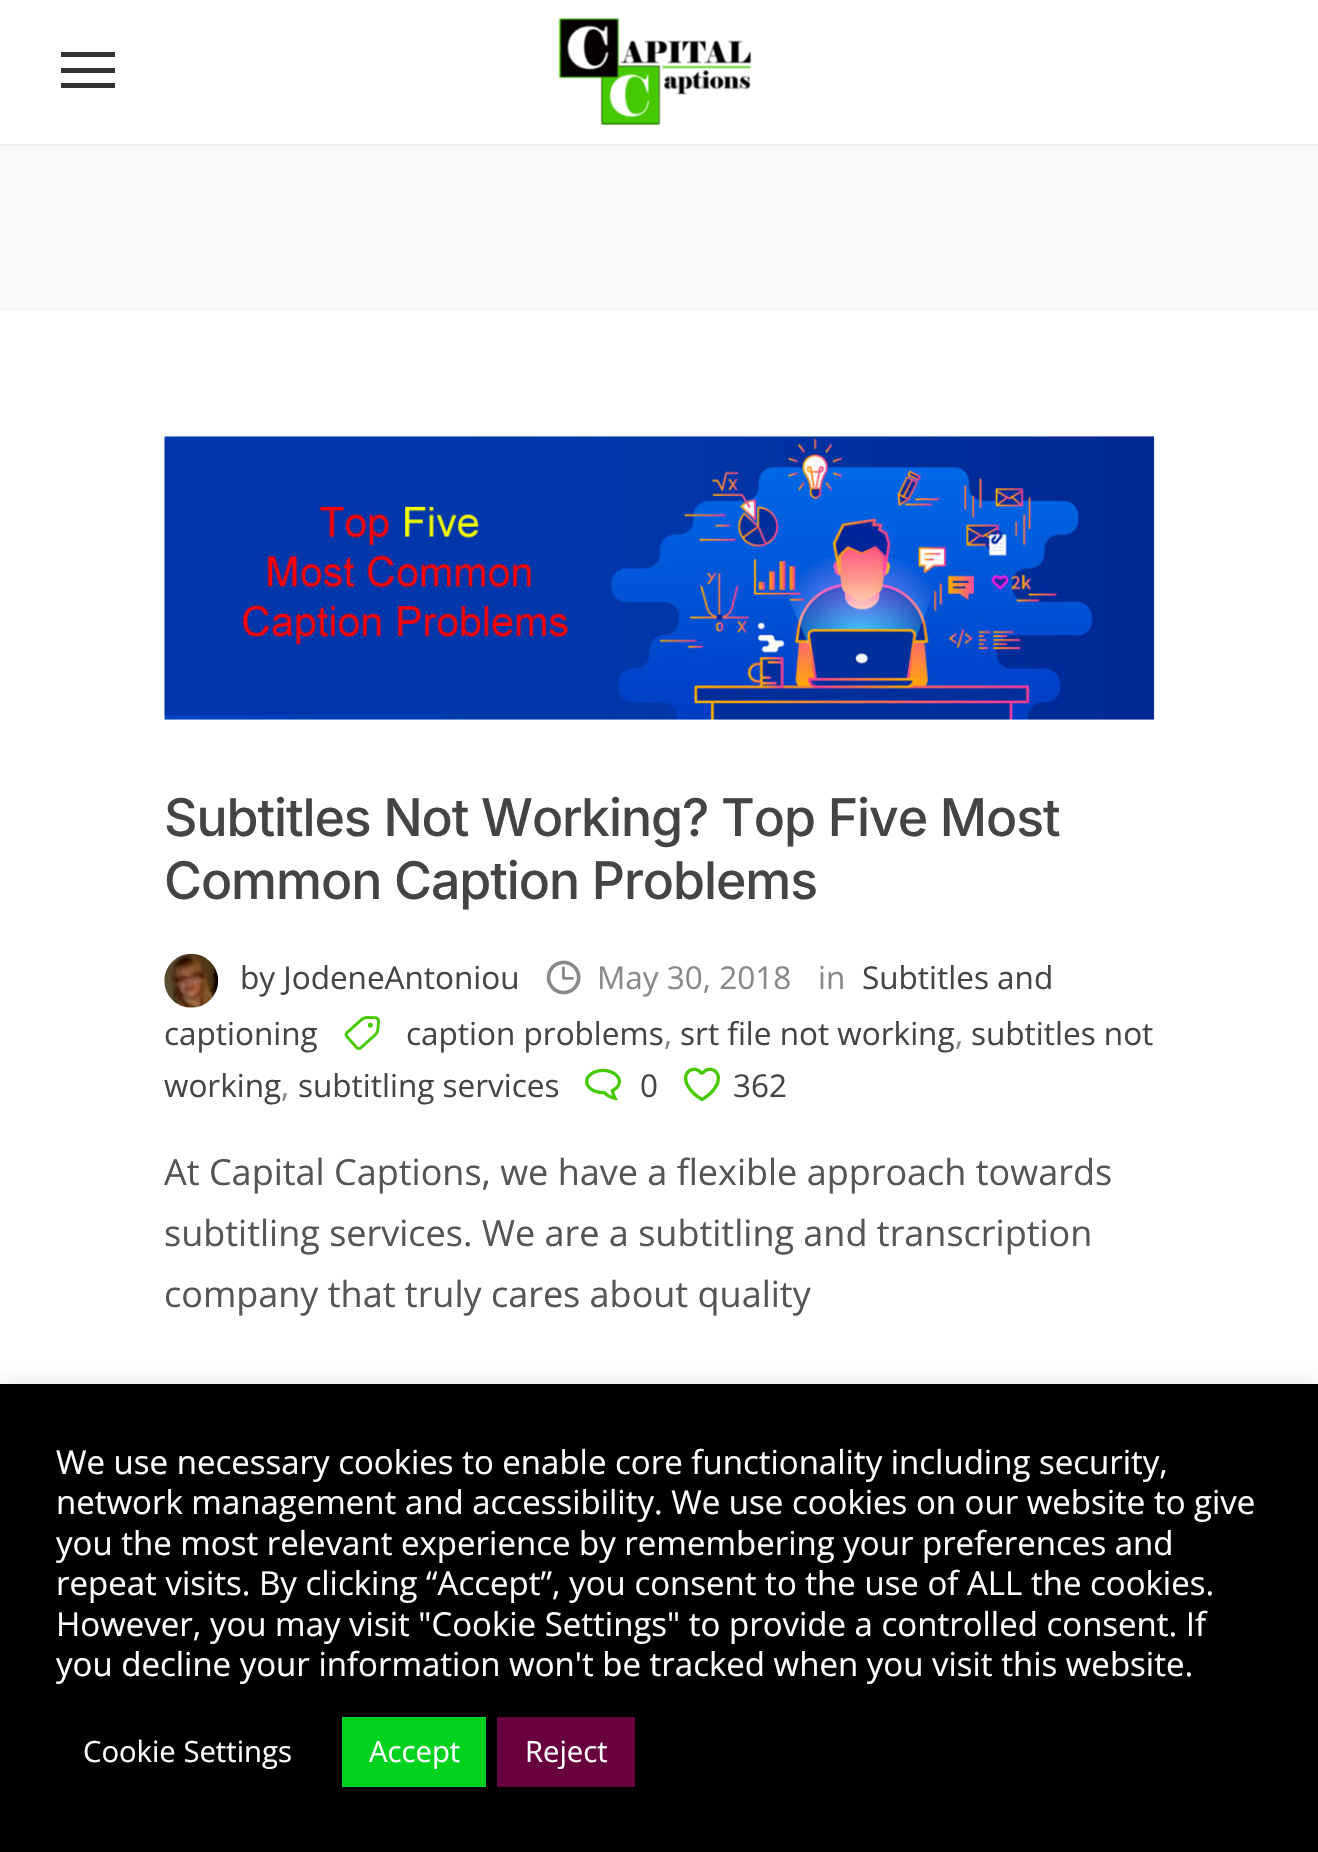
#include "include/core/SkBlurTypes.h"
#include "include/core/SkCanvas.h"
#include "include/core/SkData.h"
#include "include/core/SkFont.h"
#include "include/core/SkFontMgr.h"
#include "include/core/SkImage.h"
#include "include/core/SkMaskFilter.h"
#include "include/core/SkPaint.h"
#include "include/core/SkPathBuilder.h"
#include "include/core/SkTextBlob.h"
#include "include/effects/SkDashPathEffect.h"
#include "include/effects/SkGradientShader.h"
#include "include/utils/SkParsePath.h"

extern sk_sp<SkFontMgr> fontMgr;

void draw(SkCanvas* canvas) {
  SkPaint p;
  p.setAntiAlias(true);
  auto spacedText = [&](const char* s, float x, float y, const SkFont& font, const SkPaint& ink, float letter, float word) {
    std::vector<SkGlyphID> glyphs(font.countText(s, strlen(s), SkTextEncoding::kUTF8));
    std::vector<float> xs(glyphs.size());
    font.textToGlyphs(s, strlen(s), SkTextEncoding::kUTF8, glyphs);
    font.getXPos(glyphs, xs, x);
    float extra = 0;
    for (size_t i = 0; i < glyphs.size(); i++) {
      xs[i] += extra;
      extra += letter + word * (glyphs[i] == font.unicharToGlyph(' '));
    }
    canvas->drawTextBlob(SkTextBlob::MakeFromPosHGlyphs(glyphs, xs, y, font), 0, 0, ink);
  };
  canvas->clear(SK_ColorWHITE);
  p.setStyle(SkPaint::kStroke_Style);
  p.setStrokeWidth(2);
  p.setColor(SkColorSetRGB(238, 238, 238));
  canvas->drawRect(SkRect::MakeLTRB(-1, -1, 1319, 145), p);
  p.setStyle(SkPaint::kFill_Style);
  p.setColor(SkColorSetRGB(51, 51, 51));
  canvas->drawRect(SkRect::MakeLTRB(61, 52, 115, 57), p);
  canvas->drawRect(SkRect::MakeLTRB(61, 68, 115, 73), p);
  canvas->drawRect(SkRect::MakeLTRB(61, 83, 115, 88), p);
  canvas->drawImageRect(SkImages::DeferredFromEncodedData(SkData::MakeFromFileName("images/1.png")), SkRect::MakeLTRB(558, 18, 752, 126), SkSamplingOptions());
  p.setColor(SkColorSetRGB(250, 250, 250));
  canvas->drawRect(SkRect::MakeLTRB(0, 146, 1318, 311), p);
  p.setColor(SkColorSetRGB(243, 243, 243));
  canvas->drawRect(SkRect::MakeLTRB(0, 308, 1318, 310), p);
  canvas->drawImageRect(SkImages::DeferredFromEncodedData(SkData::MakeFromFileName("images/2.png")), SkRect::MakeLTRB(164, 436, 1155, 720), SkSamplingOptions());
  canvas->drawImageRect(SkImages::DeferredFromEncodedData(SkData::MakeFromFileName("images/3.png")), SkRect::MakeLTRB(164, 953, 219, 1008), SkSamplingOptions());
  canvas->drawImageRect(SkImages::DeferredFromEncodedData(SkData::MakeFromFileName("images/4.png")), SkRect::MakeLTRB(546, 960, 581, 995), SkSamplingOptions());
  canvas->drawImageRect(SkImages::DeferredFromEncodedData(SkData::MakeFromFileName("images/5.png")), SkRect::MakeLTRB(344, 1016, 380, 1050), SkSamplingOptions());
  canvas->drawImageRect(SkImages::DeferredFromEncodedData(SkData::MakeFromFileName("images/6.png")), SkRect::MakeLTRB(585, 1068, 621, 1101), SkSamplingOptions());
  canvas->drawImageRect(SkImages::DeferredFromEncodedData(SkData::MakeFromFileName("images/7.png")), SkRect::MakeLTRB(684, 1067, 720, 1102), SkSamplingOptions());
  p.setColor(SkColorSetARGB(77, 172, 171, 171));
  p.setMaskFilter(SkMaskFilter::MakeBlur(kNormal_SkBlurStyle, 11));
  canvas->drawRect(SkRect::MakeLTRB(0, 1382, 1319, 1852), p);
  p.setMaskFilter(nullptr);
  p.setColor(SK_ColorBLACK);
  canvas->drawRect(SkRect::MakeLTRB(0, 1384, 1318, 1852), p);
  p.setColor(SkColorSetRGB(0, 211, 31));
  canvas->drawRect(SkRect::MakeLTRB(342, 1717, 486, 1787), p);
  p.setColor(SkColorSetRGB(104, 0, 62));
  canvas->drawRect(SkRect::MakeLTRB(497, 1717, 635, 1787), p);
  SkFont font1(fontMgr->matchFamilyStyle("Inter", SkFontStyle(500, SkFontStyle::kNormal_Width, SkFontStyle::kUpright_Slant)), 51.75f);
  font1.setSubpixel(true);
  p.setColor(SkColorSetRGB(68, 68, 68));
  spacedText("Subtitles Not Working? Top Five Most", 164, 836, font1, p, -1.05f, 0);
  spacedText("Common Caption Problems", 164, 899, font1, p, -1.05f, 0);
  SkFont font2(fontMgr->matchFamilyStyle("Open Sans", SkFontStyle::Normal()), 31.5f);
  font2.setSubpixel(true);
  canvas->drawString("by JodeneAntoniou", 240, 989, font2, p);
  p.setColor(SkColorSetRGB(136, 136, 136));
  canvas->drawString("May 30, 2018", 597, 989, font2, p);
  canvas->drawString("in", 818, 989, font2, p);
  p.setColor(SkColorSetRGB(68, 68, 68));
  canvas->drawString("Subtitles and", 862, 989, font2, p);
  canvas->drawString("captioning", 164, 1045, font2, p);
  canvas->drawString("caption problems", 406, 1045, font2, p);
  p.setColor(SkColorSetRGB(136, 136, 136));
  canvas->drawString(",", 664, 1045, font2, p);
  p.setColor(SkColorSetRGB(68, 68, 68));
  canvas->drawString("srt file not working", 680, 1045, font2, p);
  p.setColor(SkColorSetRGB(136, 136, 136));
  canvas->drawString(",", 955, 1045, font2, p);
  p.setColor(SkColorSetRGB(68, 68, 68));
  canvas->drawString("subtitles not", 971, 1045, font2, p);
  canvas->drawString("working", 164, 1097, font2, p);
  p.setColor(SkColorSetRGB(136, 136, 136));
  canvas->drawString(",", 281, 1097, font2, p);
  p.setColor(SkColorSetRGB(68, 68, 68));
  canvas->drawString("subtitling services", 298, 1097, font2, p);
  canvas->drawString("0", 640, 1097, font2, p);
  canvas->drawString("362", 733, 1097, font2, p);
  SkFont font3(fontMgr->matchFamilyStyle("Open Sans", SkFontStyle::Normal()), 36);
  font3.setSubpixel(true);
  p.setColor(SkColorSetRGB(85, 85, 85));
  canvas->drawString("At Capital Captions, we have a flexible approach towards", 164, 1185, font3, p);
  canvas->drawString("subtitling services. We are a subtitling and transcription", 164, 1246, font3, p);
  canvas->drawString("company that truly cares about quality", 164, 1307, font3, p);
  SkFont font4(fontMgr->matchFamilyStyle("Open Sans", SkFontStyle::Normal()), 33);
  font4.setSubpixel(true);
  p.setColor(SK_ColorWHITE);
  canvas->drawString("We use necessary cookies to enable core functionality including security,", 56, 1474, font4, p);
  canvas->drawString("network management and accessibility. We use cookies on our website to give", 56, 1514, font4, p);
  canvas->drawString("you the most relevant experience by remembering your preferences and", 56, 1555, font4, p);
  canvas->drawString("repeat visits. By clicking “Accept”, you consent to the use of ALL the cookies.", 56, 1595, font4, p);
  canvas->drawString("However, you may visit \"Cookie Settings\" to provide a controlled consent. If", 56, 1636, font4, p);
  canvas->drawString("you decline your information won't be tracked when you visit this website.", 56, 1676, font4, p);
  SkFont font5(fontMgr->matchFamilyStyle("Open Sans", SkFontStyle::Normal()), 29.25f);
  font5.setSubpixel(true);
  canvas->drawString("Cookie Settings", 83, 1762, font5, p);
  canvas->drawString("Accept", 369, 1762, font5, p);
  canvas->drawString("Reject", 525, 1762, font5, p);
}
